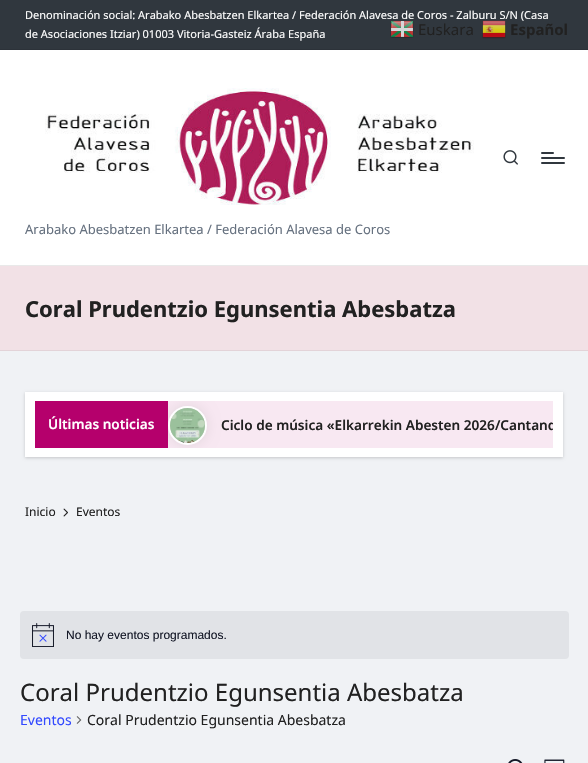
#include "include/core/SkBlurTypes.h"
#include "include/core/SkCanvas.h"
#include "include/core/SkData.h"
#include "include/core/SkFont.h"
#include "include/core/SkFontMgr.h"
#include "include/core/SkImage.h"
#include "include/core/SkMaskFilter.h"
#include "include/core/SkPaint.h"
#include "include/core/SkPathBuilder.h"
#include "include/core/SkTextBlob.h"
#include "include/effects/SkDashPathEffect.h"
#include "include/effects/SkGradientShader.h"
#include "include/utils/SkParsePath.h"

extern sk_sp<SkFontMgr> fontMgr;

void draw(SkCanvas* canvas) {
  SkPaint p;
  p.setAntiAlias(true);
  canvas->clear(SkColorSetRGB(240, 242, 245));
  p.setColor(SkColorSetRGB(48, 55, 62));
  canvas->drawRect(SkRect::MakeLTRB(0, 0, 588, 49), p);
  p.setColor(SkColorSetRGB(44, 50, 57));
  canvas->drawRect(SkRect::MakeLTRB(0, 49, 588, 50), p);
  p.setColor(SK_ColorWHITE);
  canvas->drawRect(SkRect::MakeLTRB(0, 50, 588, 265), p);
  p.setColor(SkColorSetRGB(233, 233, 233));
  canvas->drawRect(SkRect::MakeLTRB(0, 265, 588, 266), p);
  canvas->drawImageRect(SkImages::DeferredFromEncodedData(SkData::MakeFromFileName("images/1.png")), SkRect::MakeLTRB(503, 150, 518, 165), SkSamplingOptions());
  p.setColor(SkColorSetRGB(48, 55, 62));
  canvas->drawRoundRect(SkRect::MakeLTRB(541, 157, 565, 159), 1, 1, p);
  canvas->drawRoundRect(SkRect::MakeLTRB(541, 152, 554, 154), 1, 1, p);
  canvas->drawRoundRect(SkRect::MakeLTRB(541, 162, 565, 164), 1, 1, p);
  canvas->drawImageRect(SkImages::DeferredFromEncodedData(SkData::MakeFromFileName("images/2.png")), SkRect::MakeLTRB(45, 88, 474, 205), SkSamplingOptions());
  p.setColor(SkColorSetRGB(242, 225, 230));
  canvas->drawRect(SkRect::MakeLTRB(0, 266, 588, 350), p);
  p.setColor(SkColorSetRGB(227, 211, 216));
  canvas->drawRect(SkRect::MakeLTRB(0, 350, 588, 351), p);
  p.setColor(SkColorSetARGB(46, 0, 0, 0));
  p.setMaskFilter(SkMaskFilter::MakeBlur(kNormal_SkBlurStyle, 1.5f));
  canvas->drawRect(SkRect::MakeLTRB(25, 393, 563, 458), p);
  p.setMaskFilter(nullptr);
  p.setColor(SK_ColorWHITE);
  canvas->drawRect(SkRect::MakeLTRB(25, 392, 563, 457), p);
  p.setColor(SkColorSetRGB(181, 0, 108));
  canvas->drawRect(SkRect::MakeLTRB(35, 401, 168, 448), p);
  p.setColor(SkColorSetRGB(248, 232, 242));
  canvas->drawRect(SkRect::MakeLTRB(168, 401, 553, 448), p);
  canvas->save();
  canvas->clipRect(SkRect::MakeLTRB(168, 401, 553, 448));
  p.setColor(SkColorSetARGB(23, 0, 0, 0));
  p.setMaskFilter(SkMaskFilter::MakeBlur(kNormal_SkBlurStyle, 6.5f));
  canvas->drawRoundRect(SkRect::MakeLTRB(168, 406, 207, 445), 19.5f, 19.5f, p);
  p.setMaskFilter(nullptr);
  canvas->restore();
  p.setStyle(SkPaint::kStroke_Style);
  p.setStrokeWidth(2);
  p.setColor(SK_ColorWHITE);
  canvas->drawCircle(187.5f, 425.5f, 18.5f, p);
  canvas->drawImageRect(SkImages::DeferredFromEncodedData(SkData::MakeFromFileName("images/3.png")), SkRect::MakeLTRB(170, 408, 205, 443), SkSamplingOptions());
  canvas->drawImageRect(SkImages::DeferredFromEncodedData(SkData::MakeFromFileName("images/4.png")), SkRect::MakeLTRB(63, 508, 68, 517), SkSamplingOptions());
  p.setStyle(SkPaint::kFill_Style);
  p.setColor(SkColorSetRGB(225, 227, 231));
  canvas->drawRoundRect(SkRect::MakeLTRB(20, 611, 569, 659), 4, 4, p);
  canvas->drawImageRect(SkImages::DeferredFromEncodedData(SkData::MakeFromFileName("images/5.png")), SkRect::MakeLTRB(32, 623, 54, 647), SkSamplingOptions());
  canvas->drawImageRect(SkImages::DeferredFromEncodedData(SkData::MakeFromFileName("images/6.png")), SkRect::MakeLTRB(76, 716, 82, 724), SkSamplingOptions());
  canvas->drawImageRect(SkImages::DeferredFromEncodedData(SkData::MakeFromFileName("images/7.png")), SkRect::MakeLTRB(508, 759, 523, 763), SkSamplingOptions());
  canvas->drawImageRect(SkImages::DeferredFromEncodedData(SkData::MakeFromFileName("images/8.png")), SkRect::MakeLTRB(544, 759, 565, 763), SkSamplingOptions());
  canvas->drawImageRect(SkImages::DeferredFromEncodedData(SkData::MakeFromFileName("images/9.png")), SkRect::MakeLTRB(390, 21, 414, 38), SkSamplingOptions());
  SkFont font1(fontMgr->matchFamilyStyle("Noto Sans", SkFontStyle::Normal()), 11);
  font1.setSubpixel(true);
  p.setColor(SK_ColorWHITE);
  canvas->drawString("Denominación social: Arabako Abesbatzen Elkartea / Federación Alavesa de Coros - Zalburu S/N (Casa", 25, 19, font1, p);
  canvas->drawString("de Asociaciones Itziar) 01003 Vitoria-Gasteiz Áraba España", 25, 38, font1, p);
  SkFont font2(fontMgr->matchFamilyStyle("Noto Sans", SkFontStyle::Normal()), 13);
  font2.setSubpixel(true);
  p.setColor(SkColorSetRGB(102, 113, 127));
  canvas->drawString("Arabako Abesbatzen Elkartea / Federación Alavesa de Coros", 25, 234, font2, p);
  SkFont font3(fontMgr->matchFamilyStyle("Noto Sans", SkFontStyle::Bold()), 22);
  font3.setSubpixel(true);
  p.setColor(SkColorSetRGB(33, 33, 33));
  canvas->drawString("Coral Prudentzio Egunsentia Abesbatza", 25, 317, font3, p);
  SkFont font4(fontMgr->matchFamilyStyle("Noto Sans", SkFontStyle(600, SkFontStyle::kNormal_Width, SkFontStyle::kUpright_Slant)), 13.6f);
  font4.setSubpixel(true);
  p.setColor(SK_ColorWHITE);
  canvas->drawString("Últimas noticias", 48, 429, font4, p);
  canvas->save();
  canvas->clipRect(SkRect::MakeLTRB(168, 401, 553, 448));
  p.setColor(SkColorSetRGB(33, 33, 33));
  canvas->drawString("Ciclo de música «Elkarrekin Abesten 2026/Cantand", 221, 430, font4, p);
  canvas->restore();
  SkFont font5(fontMgr->matchFamilyStyle("Noto Sans", SkFontStyle::Normal()), 12);
  font5.setSubpixel(true);
  canvas->drawString("Inicio", 25, 516, font5, p);
  canvas->drawString("Eventos", 76, 516, font5, p);
  SkFont font6(fontMgr->matchFamilyStyle("Liberation Sans", SkFontStyle::Normal()), 12);
  font6.setSubpixel(true);
  p.setColor(SkColorSetRGB(20, 24, 39));
  canvas->drawString("No hay eventos programados.", 66, 639, font6, p);
  SkFont font7(fontMgr->matchFamilyStyle("Noto Sans", SkFontStyle::Normal()), 24);
  font7.setSubpixel(true);
  p.setColor(SkColorSetRGB(33, 33, 33));
  canvas->drawString("Coral Prudentzio Egunsentia Abesbatza", 20, 701, font7, p);
  SkFont font8(fontMgr->matchFamilyStyle("Noto Sans", SkFontStyle::Normal()), 14);
  font8.setSubpixel(true);
  p.setColor(SkColorSetRGB(51, 74, 255));
  canvas->drawString("Eventos", 20, 725, font8, p);
  p.setColor(SkColorSetRGB(33, 33, 33));
  canvas->drawString("Coral Prudentzio Egunsentia Abesbatza", 87, 725, font8, p);
  SkFont font9(fontMgr->matchFamilyStyle("Noto Sans", SkFontStyle::Normal()), 15);
  font9.setSubpixel(true);
  canvas->drawString("Euskara", 418, 35, font9, p);
  canvas->drawImageRect(SkImages::DeferredFromEncodedData(SkData::MakeFromFileName("images/10.png")), SkRect::MakeLTRB(482, 20, 506, 39), SkSamplingOptions());
  SkFont font10(fontMgr->matchFamilyStyle("Noto Sans", SkFontStyle::Bold()), 15);
  font10.setSubpixel(true);
  canvas->drawString("Español", 510, 35, font10, p);
}
